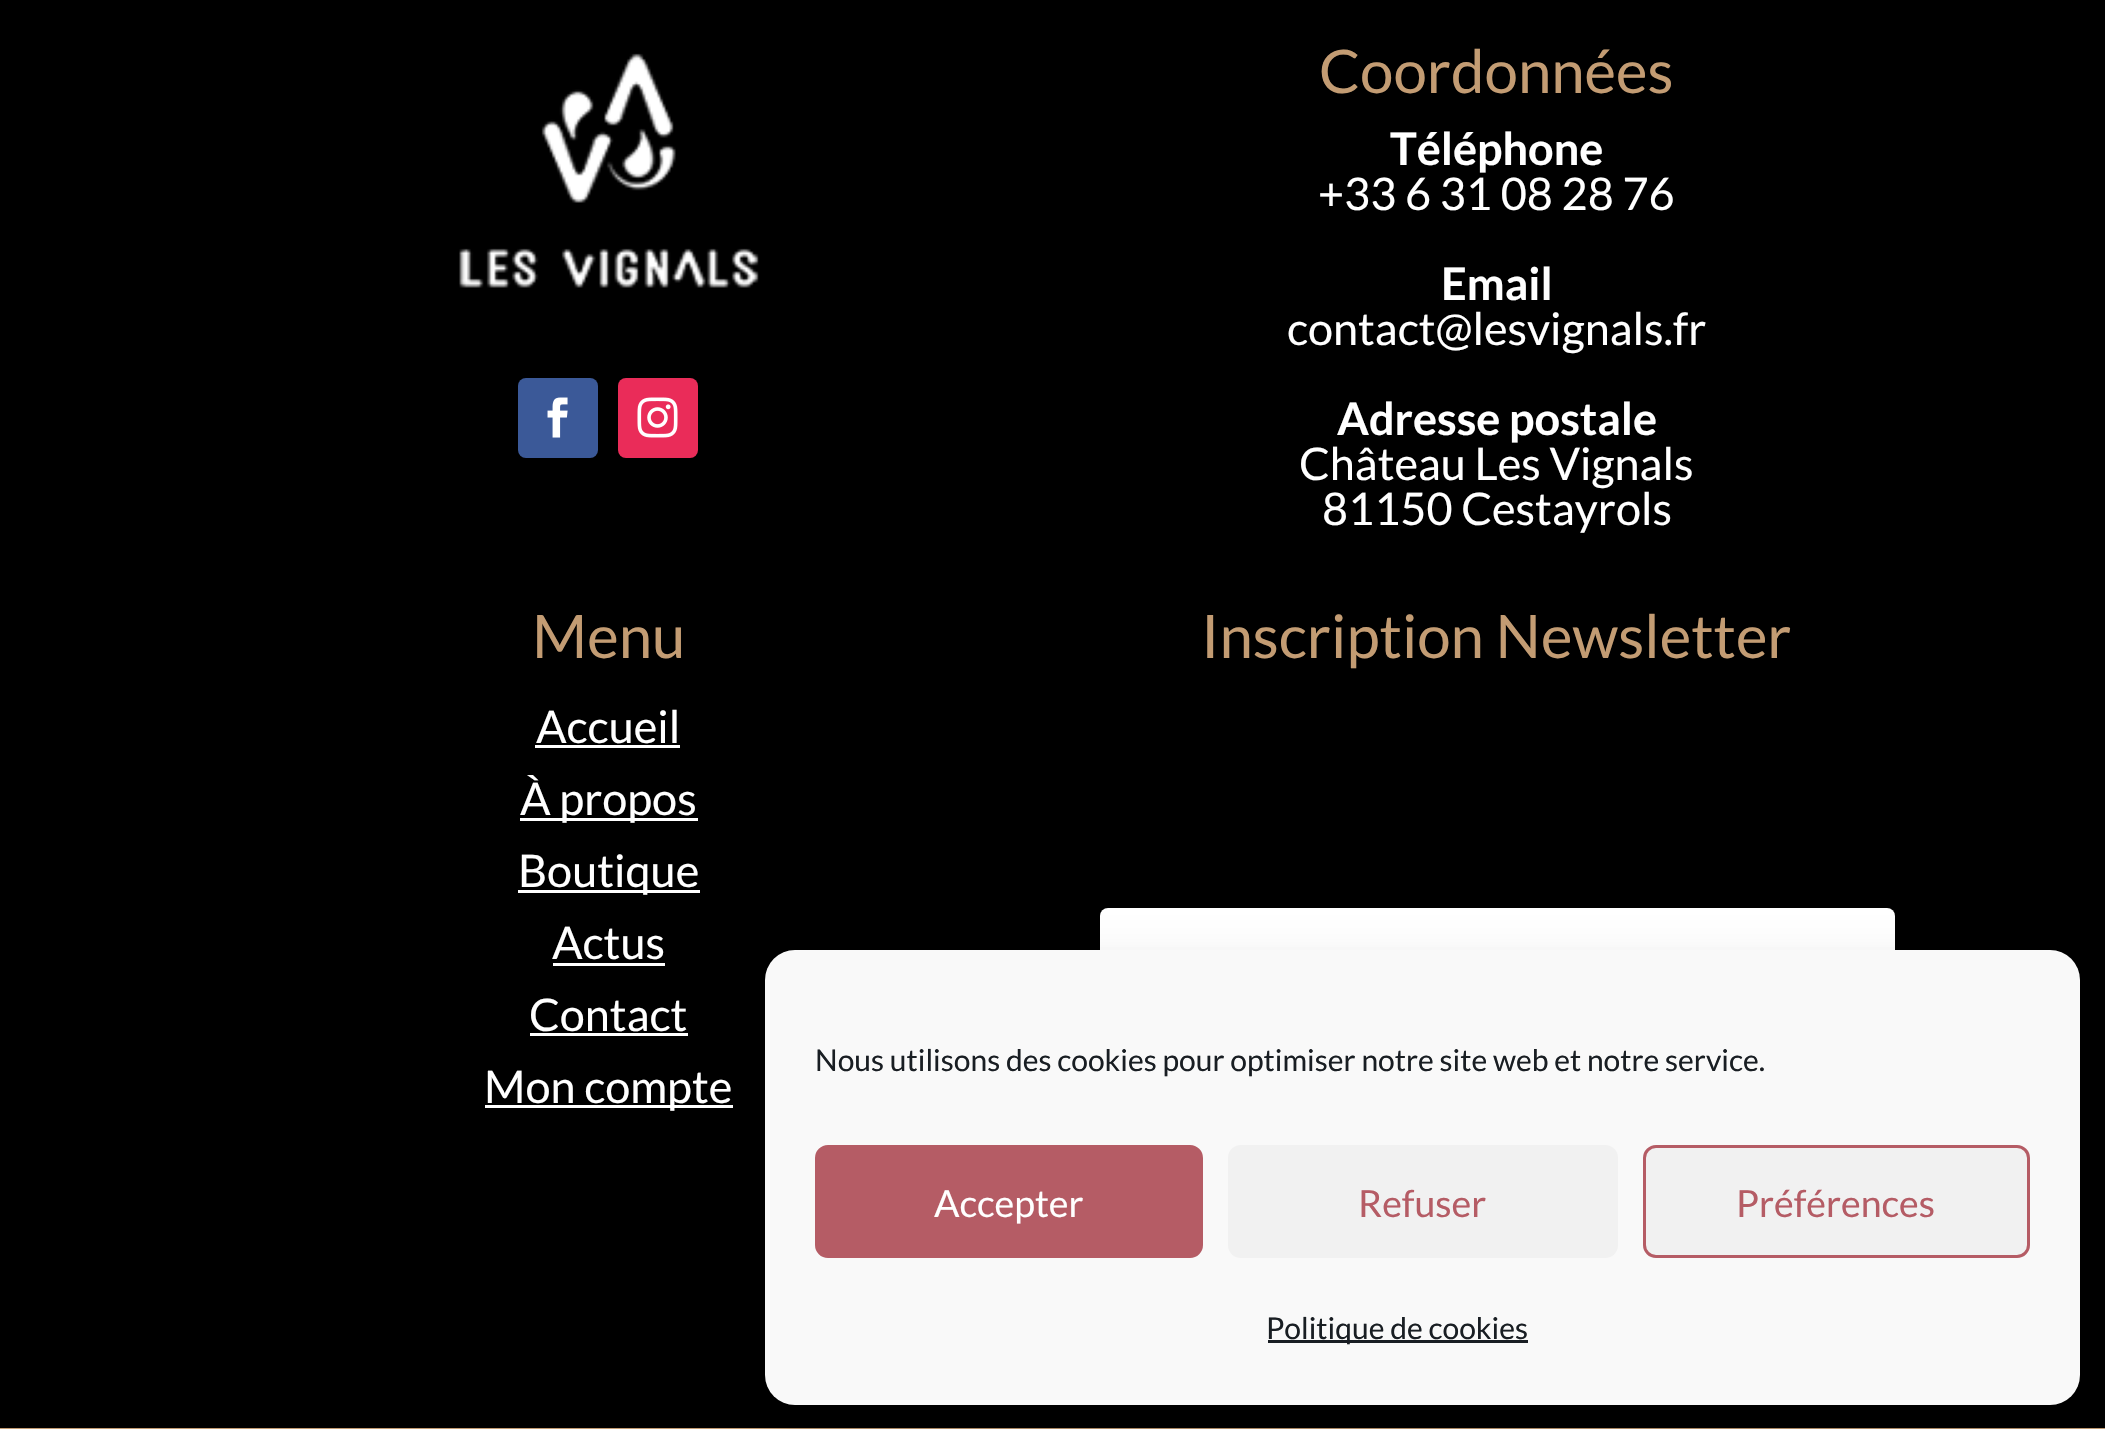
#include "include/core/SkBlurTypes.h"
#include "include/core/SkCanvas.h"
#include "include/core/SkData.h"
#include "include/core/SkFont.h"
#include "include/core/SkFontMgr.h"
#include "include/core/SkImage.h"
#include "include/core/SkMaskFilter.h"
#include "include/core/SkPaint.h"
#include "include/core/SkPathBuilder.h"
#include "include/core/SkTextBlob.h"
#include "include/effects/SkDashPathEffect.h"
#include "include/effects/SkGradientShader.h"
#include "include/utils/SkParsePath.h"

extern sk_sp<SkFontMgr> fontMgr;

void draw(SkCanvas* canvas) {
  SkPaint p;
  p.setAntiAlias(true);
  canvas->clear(SK_ColorBLACK);
  canvas->drawImageRect(SkImages::DeferredFromEncodedData(SkData::MakeFromFileName("images/1.png")), SkRect::MakeLTRB(459, 53, 759, 288), SkSamplingOptions());
  p.setColor(SkColorSetRGB(59, 89, 152));
  canvas->drawRoundRect(SkRect::MakeLTRB(518, 378, 598, 458), 8, 8, p);
  canvas->drawImageRect(SkImages::DeferredFromEncodedData(SkData::MakeFromFileName("images/2.png")), SkRect::MakeLTRB(547, 397, 568, 438), SkSamplingOptions());
  p.setColor(SkColorSetRGB(234, 44, 89));
  canvas->drawRoundRect(SkRect::MakeLTRB(618, 378, 698, 458), 8, 8, p);
  canvas->drawImageRect(SkImages::DeferredFromEncodedData(SkData::MakeFromFileName("images/3.png")), SkRect::MakeLTRB(637, 397, 678, 438), SkSamplingOptions());
  p.setColor(SK_ColorWHITE);
  canvas->drawRect(SkRect::MakeLTRB(535, 745, 680, 748), p);
  canvas->drawRect(SkRect::MakeLTRB(520, 818, 698, 821), p);
  canvas->drawRect(SkRect::MakeLTRB(518, 890, 700, 893), p);
  canvas->drawRect(SkRect::MakeLTRB(553, 963, 665, 966), p);
  canvas->drawRect(SkRect::MakeLTRB(530, 1033, 688, 1036), p);
  canvas->drawRect(SkRect::MakeLTRB(485, 1105, 733, 1108), p);
  canvas->drawRoundRect(SkRect::MakeLTRB(1100, 908, 1895, 1005), 8, 8, p);
  p.setColor(SkColorSetRGB(195, 156, 115));
  canvas->drawRect(SkRect::MakeLTRB(0, 1428, 2105, 1429), p);
  p.setColor(SkColorSetARGB(59, 0, 0, 0));
  p.setMaskFilter(SkMaskFilter::MakeBlur(kNormal_SkBlurStyle, 7.5f));
  canvas->drawRoundRect(SkRect::MakeLTRB(765, 965, 2080, 1420), 30, 30, p);
  p.setMaskFilter(nullptr);
  p.setColor(SkColorSetARGB(48, 0, 0, 0));
  p.setMaskFilter(SkMaskFilter::MakeBlur(kNormal_SkBlurStyle, 25));
  canvas->drawRoundRect(SkRect::MakeLTRB(765, 975, 2080, 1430), 30, 30, p);
  p.setMaskFilter(nullptr);
  p.setColor(SkColorSetRGB(249, 249, 249));
  canvas->drawRoundRect(SkRect::MakeLTRB(765, 950, 2080, 1405), 30, 30, p);
  p.setColor(SkColorSetRGB(181, 92, 101));
  canvas->drawRoundRect(SkRect::MakeLTRB(816.5f, 1146.5f, 1201.5f, 1256.5f), 11.5f, 11.5f, p);
  p.setStyle(SkPaint::kStroke_Style);
  p.setStrokeWidth(3);
  canvas->drawRoundRect(SkRect::MakeLTRB(816.5f, 1146.5f, 1201.5f, 1256.5f), 11.5f, 11.5f, p);
  p.setStyle(SkPaint::kFill_Style);
  p.setColor(SkColorSetRGB(241, 241, 241));
  canvas->drawRoundRect(SkRect::MakeLTRB(1228, 1145, 1618, 1258), 13, 13, p);
  canvas->drawRoundRect(SkRect::MakeLTRB(1644.5f, 1146.5f, 2028.5f, 1256.5f), 11.5f, 11.5f, p);
  p.setStyle(SkPaint::kStroke_Style);
  p.setColor(SkColorSetRGB(181, 92, 101));
  canvas->drawRoundRect(SkRect::MakeLTRB(1644.5f, 1146.5f, 2028.5f, 1256.5f), 11.5f, 11.5f, p);
  p.setStyle(SkPaint::kFill_Style);
  p.setColor(SkColorSetRGB(25, 30, 35));
  canvas->drawRect(SkRect::MakeLTRB(1268, 1340, 1528, 1343), p);
  SkFont font1(fontMgr->matchFamilyStyle("Lato", SkFontStyle::Normal()), 60);
  font1.setSubpixel(true);
  p.setColor(SkColorSetRGB(195, 156, 115));
  canvas->drawString("Coordonnées", 1319, 93, font1, p);
  SkFont font2(fontMgr->matchFamilyStyle("Lato", SkFontStyle::Bold()), 45);
  font2.setSubpixel(true);
  p.setColor(SK_ColorWHITE);
  canvas->drawString("Téléphone", 1390, 165, font2, p);
  SkFont font3(fontMgr->matchFamilyStyle("Lato", SkFontStyle::Normal()), 45);
  font3.setSubpixel(true);
  canvas->drawString("+33 6 31 08 28 76", 1318, 210, font3, p);
  canvas->drawString("Email", 1441, 300, font2, p);
  canvas->drawString("contact@lesvignals.fr", 1287, 345, font3, p);
  canvas->drawString("Adresse postale", 1337, 435, font2, p);
  canvas->drawString("Château Les Vignals", 1299, 480, font3, p);
  canvas->drawString("81150 Cestayrols", 1322, 525, font3, p);
  p.setColor(SkColorSetRGB(195, 156, 115));
  canvas->drawString("Menu", 532, 658, font1, p);
  p.setColor(SK_ColorWHITE);
  canvas->drawString("Accueil", 536, 743, font3, p);
  canvas->drawString("À propos", 520, 815, font3, p);
  canvas->drawString("Boutique", 518, 887, font3, p);
  canvas->drawString("Actus", 552, 959, font3, p);
  canvas->drawString("Contact", 529, 1031, font3, p);
  canvas->drawString("Mon compte", 484, 1103, font3, p);
  p.setColor(SkColorSetRGB(195, 156, 115));
  canvas->drawString("Inscription Newsletter", 1201, 658, font1, p);
  SkFont font4(fontMgr->matchFamilyStyle("Lato", SkFontStyle::Normal()), 30);
  font4.setSubpixel(true);
  p.setColor(SkColorSetRGB(25, 30, 35));
  canvas->drawString("Nous utilisons des cookies pour optimiser notre site web et notre service.", 815, 1071, font4, p);
  SkFont font5(fontMgr->matchFamilyStyle("Lato", SkFontStyle::Normal()), 37.5f);
  font5.setSubpixel(true);
  p.setColor(SK_ColorWHITE);
  canvas->drawString("Accepter", 934, 1217, font5, p);
  p.setColor(SkColorSetRGB(181, 92, 101));
  canvas->drawString("Refuser", 1358, 1217, font5, p);
  canvas->drawString("Préférences", 1736, 1217, font5, p);
  p.setColor(SkColorSetRGB(25, 30, 35));
  canvas->drawString("Politique de cookies", 1266, 1339, font4, p);
}
